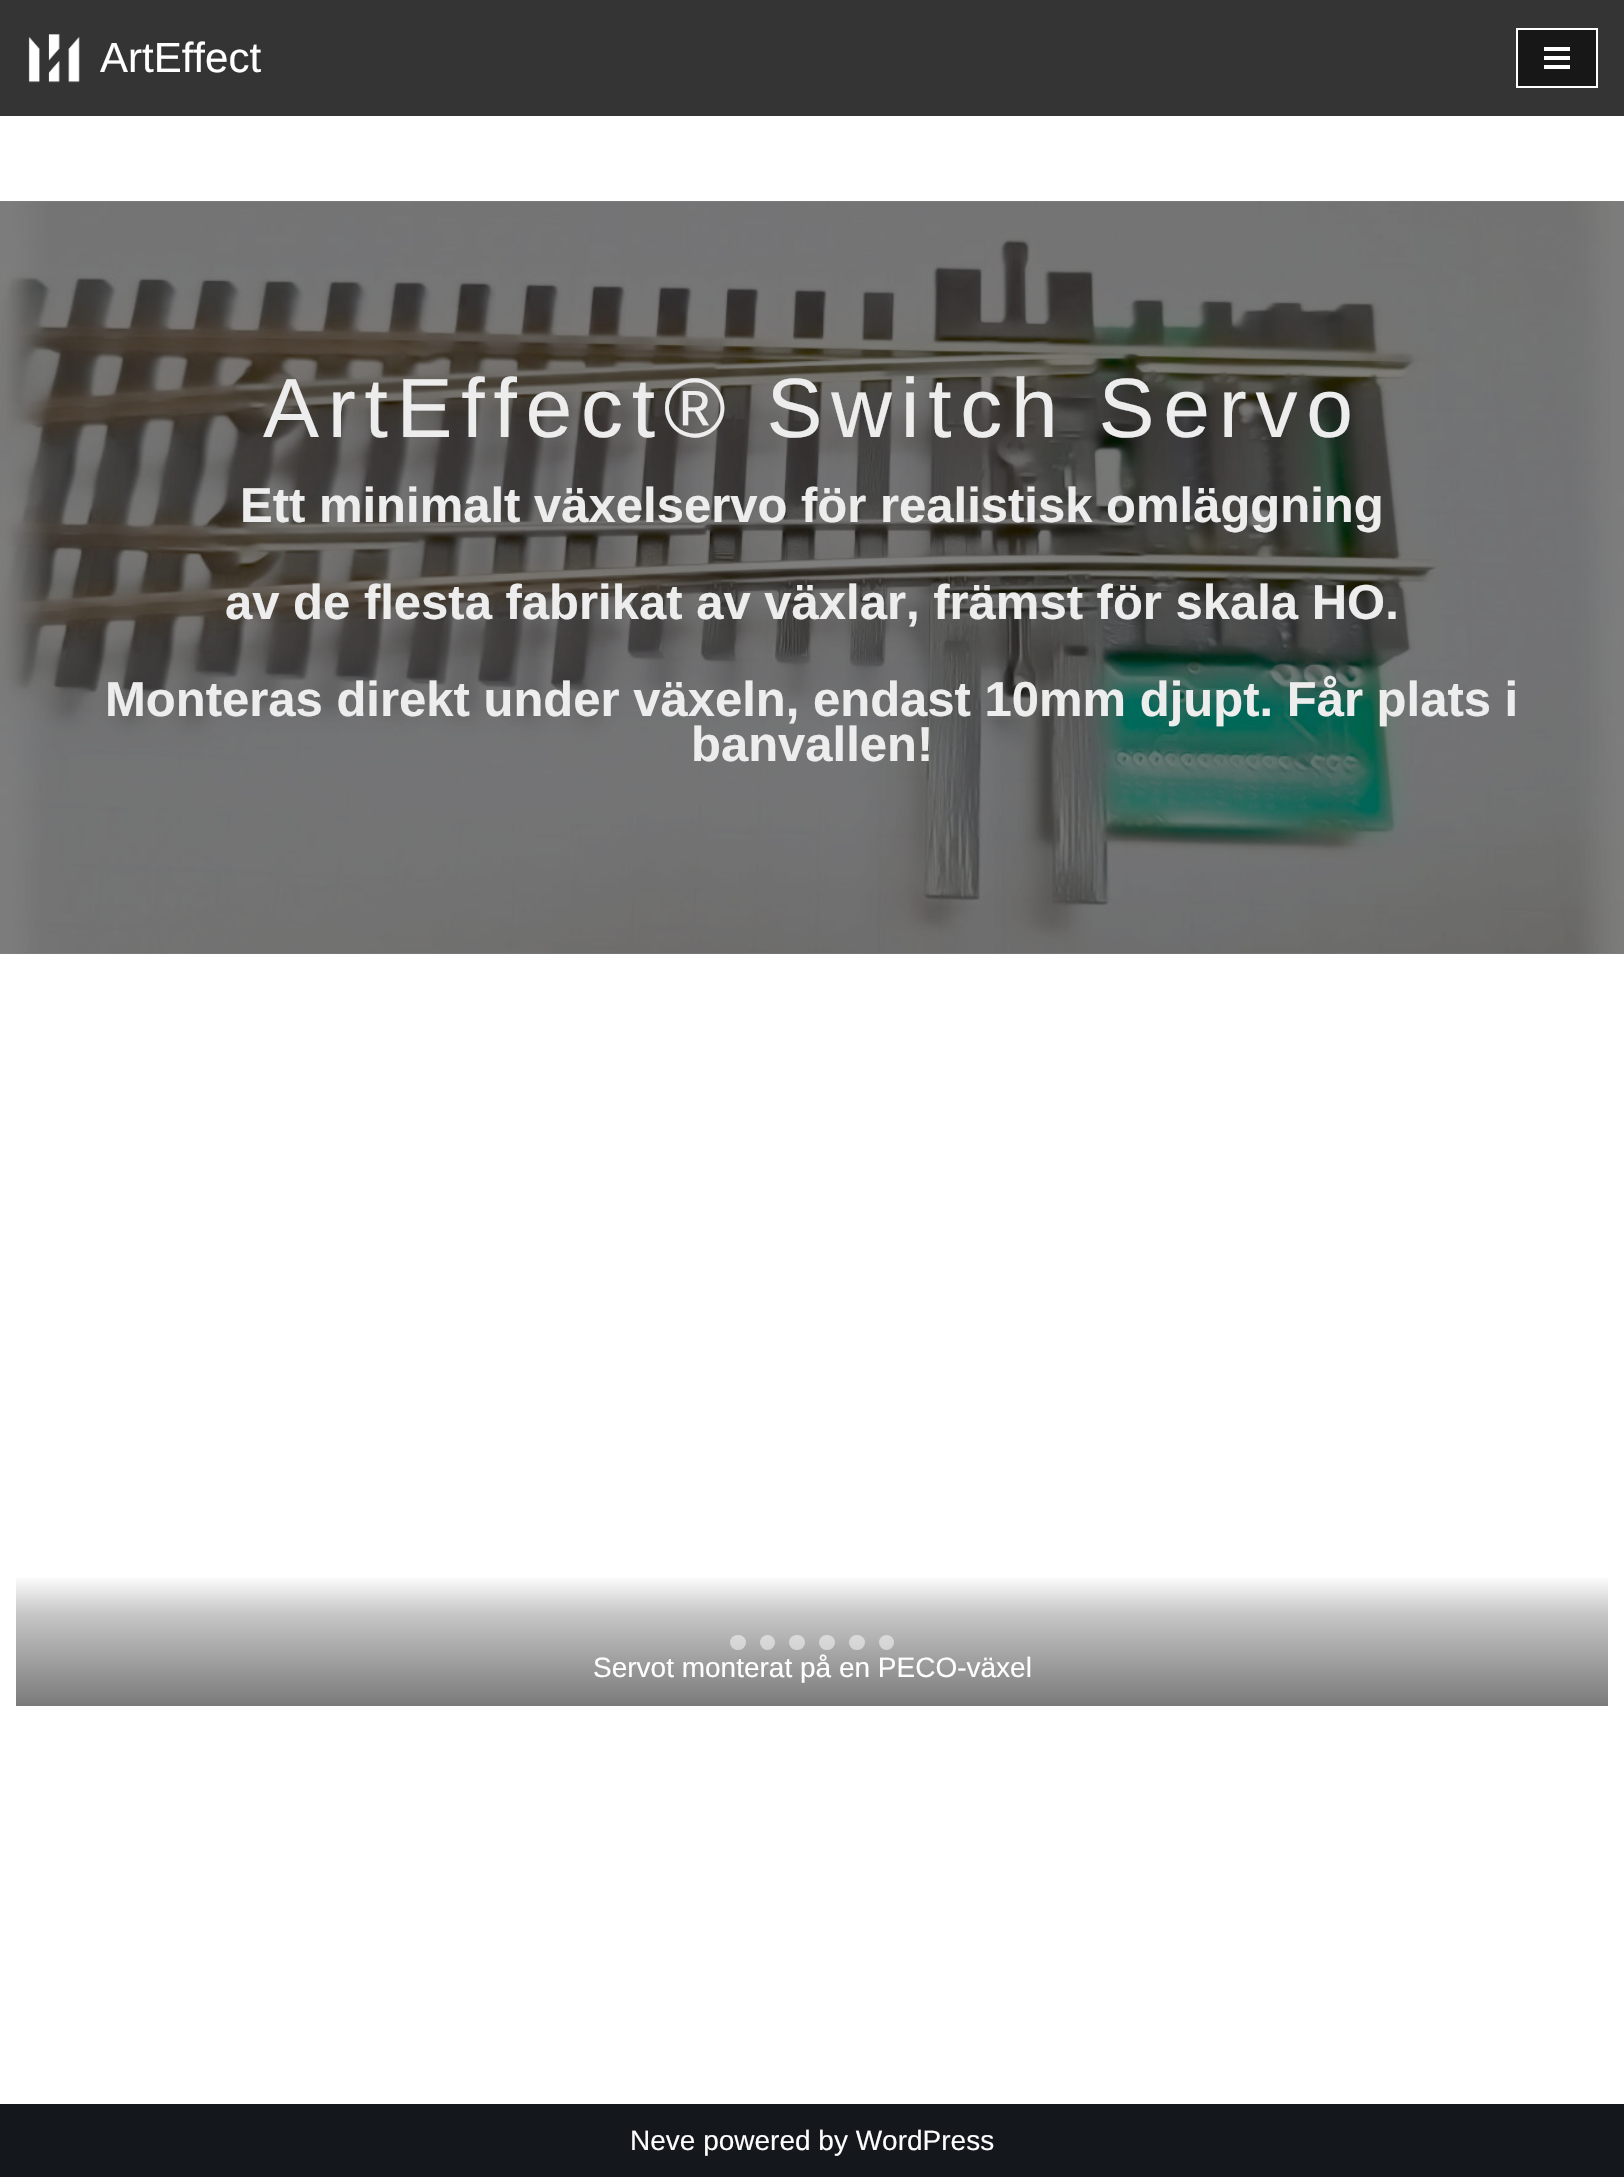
#include "include/core/SkBlurTypes.h"
#include "include/core/SkCanvas.h"
#include "include/core/SkData.h"
#include "include/core/SkFont.h"
#include "include/core/SkFontMgr.h"
#include "include/core/SkImage.h"
#include "include/core/SkMaskFilter.h"
#include "include/core/SkPaint.h"
#include "include/core/SkPathBuilder.h"
#include "include/core/SkTextBlob.h"
#include "include/effects/SkDashPathEffect.h"
#include "include/effects/SkGradientShader.h"
#include "include/utils/SkParsePath.h"

extern sk_sp<SkFontMgr> fontMgr;

void draw(SkCanvas* canvas) {
  SkPaint p;
  p.setAntiAlias(true);
  auto spacedText = [&](const char* s, float x, float y, const SkFont& font, const SkPaint& ink, float letter, float word) {
    std::vector<SkGlyphID> glyphs(font.countText(s, strlen(s), SkTextEncoding::kUTF8));
    std::vector<float> xs(glyphs.size());
    font.textToGlyphs(s, strlen(s), SkTextEncoding::kUTF8, glyphs);
    font.getXPos(glyphs, xs, x);
    float extra = 0;
    for (size_t i = 0; i < glyphs.size(); i++) {
      xs[i] += extra;
      extra += letter + word * (glyphs[i] == font.unicharToGlyph(' '));
    }
    canvas->drawTextBlob(SkTextBlob::MakeFromPosHGlyphs(glyphs, xs, y, font), 0, 0, ink);
  };
  canvas->clear(SK_ColorWHITE);
  p.setColor(SkColorSetRGB(128, 128, 128));
  canvas->drawRect(SkRect::MakeLTRB(0, 201, 1624, 954), p);
  p.setColor(SkColorSetRGB(52, 52, 52));
  canvas->drawRect(SkRect::MakeLTRB(0, 0, 1624, 116), p);
  canvas->drawImageRect(SkImages::DeferredFromEncodedData(SkData::MakeFromFileName("images/1.png")), SkRect::MakeLTRB(28, 34, 80, 83), SkSamplingOptions());
  p.setColor(SkColorSetRGB(23, 23, 23));
  canvas->drawRect(SkRect::MakeLTRB(1517, 29, 1597, 87), p);
  p.setStyle(SkPaint::kStroke_Style);
  p.setStrokeWidth(2);
  p.setColor(SK_ColorWHITE);
  canvas->drawRect(SkRect::MakeLTRB(1517, 29, 1597, 87), p);
  p.setStyle(SkPaint::kFill_Style);
  canvas->drawRect(SkRect::MakeLTRB(1544, 47, 1570, 51), p);
  canvas->drawRect(SkRect::MakeLTRB(1544, 56, 1570, 60), p);
  canvas->drawRect(SkRect::MakeLTRB(1544, 65, 1570, 69), p);
  canvas->drawImageRect(SkImages::DeferredFromEncodedData(SkData::MakeFromFileName("images/2.png")), SkRect::MakeLTRB(0, 201, 1624, 954), SkSamplingOptions());
  {
    const SkColor colors[] = {SkColorSetRGB(122, 122, 122), SkColorSetRGB(198, 198, 198), SK_ColorWHITE};
    const float stops[] = {0, 0.7f, 1};
    const SkPoint ends[] = {{812, 1706}, {812, 1575}};
    p.setShader(SkGradientShader::MakeLinear(ends, colors, stops, 3, SkTileMode::kClamp));
    p.setAlpha(255);
  }
  canvas->drawRect(SkRect::MakeLTRB(16, 1577, 1608, 1706), p);
  p.setShader(nullptr);
  p.setColor(SkColorSetARGB(128, 255, 255, 255));
  canvas->drawRoundRect(SkRect::MakeLTRB(730, 1635, 746, 1650), 7.5f, 7.5f, p);
  canvas->drawCircle(767.5f, 1642.5f, 7.5f, p);
  canvas->drawRoundRect(SkRect::MakeLTRB(789, 1635, 805, 1650), 7.5f, 7.5f, p);
  canvas->drawRoundRect(SkRect::MakeLTRB(819, 1635, 835, 1650), 7.5f, 7.5f, p);
  canvas->drawRoundRect(SkRect::MakeLTRB(849, 1635, 865, 1650), 7.5f, 7.5f, p);
  canvas->drawCircle(886.5f, 1642.5f, 7.5f, p);
  p.setColor(SkColorSetRGB(20, 23, 28));
  canvas->drawRect(SkRect::MakeLTRB(0, 2104, 1624, 2177), p);
  SkFont font1(fontMgr->matchFamilyStyle("Liberation Sans", SkFontStyle::Normal()), 42);
  font1.setSubpixel(true);
  p.setColor(SK_ColorWHITE);
  canvas->drawString("ArtEffect", 100, 72, font1, p);
  SkFont font2(fontMgr->matchFamilyStyle("Liberation Sans", SkFontStyle::Normal()), 84);
  font2.setSubpixel(true);
  p.setColor(SkColorSetRGB(237, 237, 237));
  spacedText("ArtEffect® Switch Servo", 263, 437, font2, p, 8.75f, 0);
  SkFont font3(fontMgr->matchFamilyStyle("Liberation Sans", SkFontStyle::Bold()), 49);
  font3.setSubpixel(true);
  canvas->drawString("Ett minimalt växelservo för realistisk omläggning", 240, 522, font3, p);
  canvas->drawString("av de flesta fabrikat av växlar, främst för skala HO.", 225, 619, font3, p);
  canvas->drawString("Monteras direkt under växeln, endast 10mm djupt. Får plats i", 105, 716, font3, p);
  canvas->drawString("banvallen!", 691, 761, font3, p);
  SkFont font4(fontMgr->matchFamilyStyle("Liberation Sans", SkFontStyle::Normal()), 28);
  font4.setSubpixel(true);
  p.setColor(SK_ColorWHITE);
  canvas->drawString("Servot monterat på en PECO-växel", 593, 1677, font4, p);
  canvas->drawString("Neve powered by WordPress", 630, 2150, font4, p);
}
